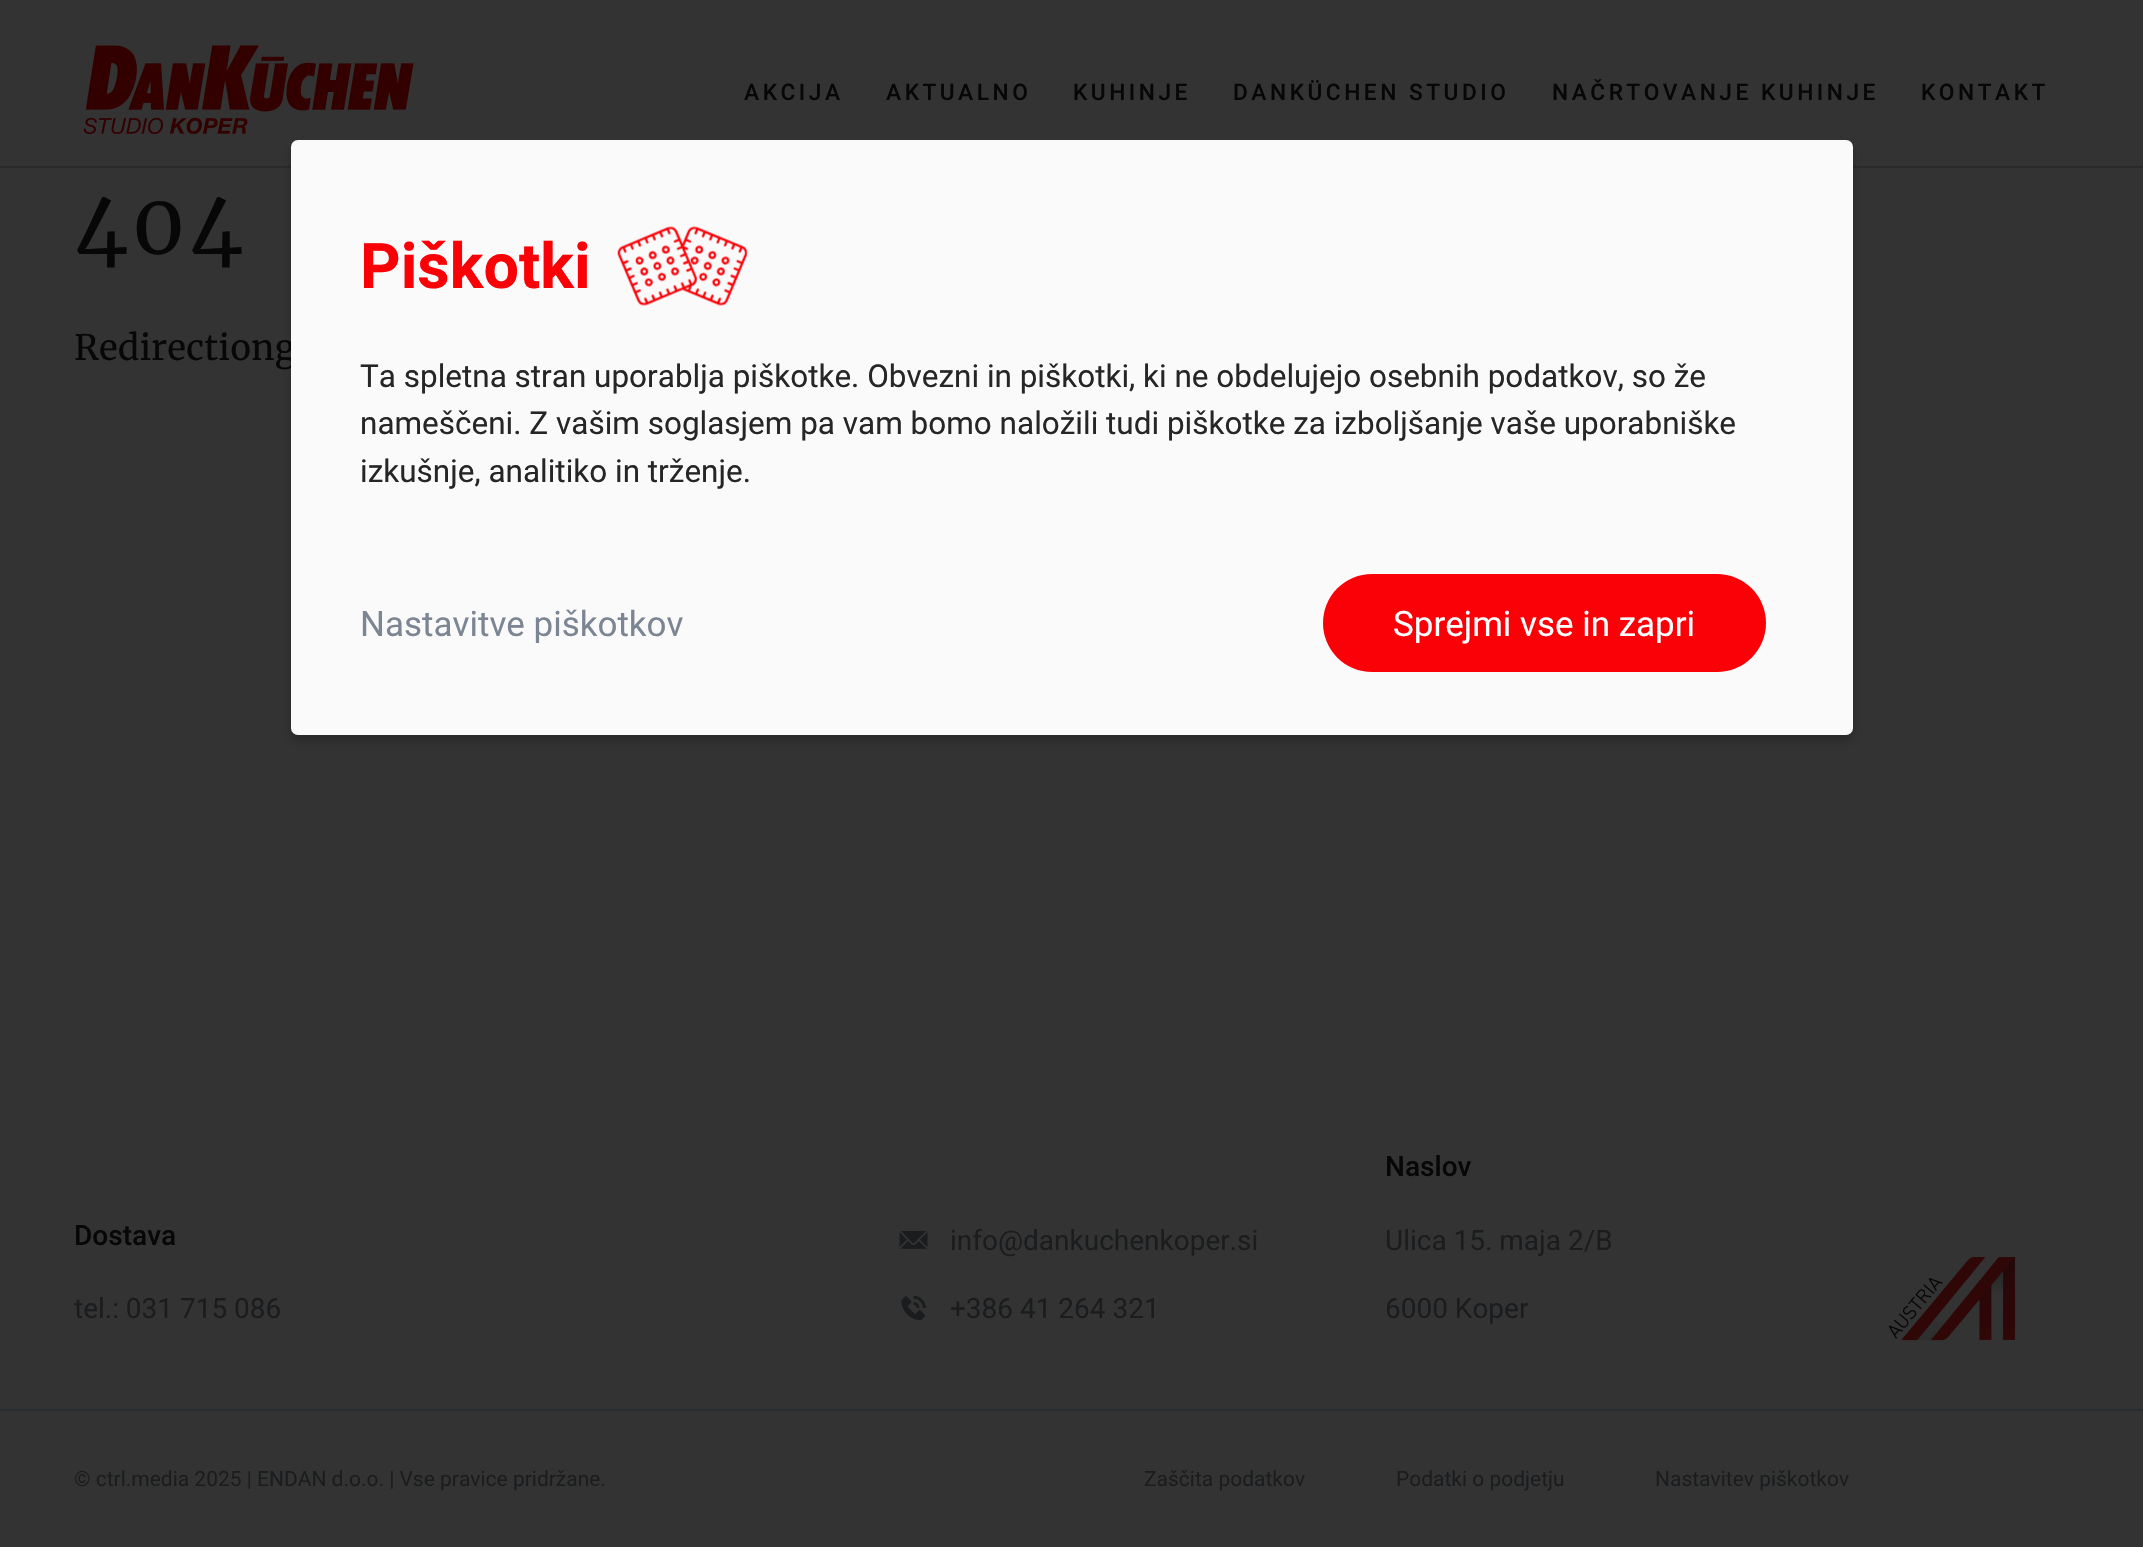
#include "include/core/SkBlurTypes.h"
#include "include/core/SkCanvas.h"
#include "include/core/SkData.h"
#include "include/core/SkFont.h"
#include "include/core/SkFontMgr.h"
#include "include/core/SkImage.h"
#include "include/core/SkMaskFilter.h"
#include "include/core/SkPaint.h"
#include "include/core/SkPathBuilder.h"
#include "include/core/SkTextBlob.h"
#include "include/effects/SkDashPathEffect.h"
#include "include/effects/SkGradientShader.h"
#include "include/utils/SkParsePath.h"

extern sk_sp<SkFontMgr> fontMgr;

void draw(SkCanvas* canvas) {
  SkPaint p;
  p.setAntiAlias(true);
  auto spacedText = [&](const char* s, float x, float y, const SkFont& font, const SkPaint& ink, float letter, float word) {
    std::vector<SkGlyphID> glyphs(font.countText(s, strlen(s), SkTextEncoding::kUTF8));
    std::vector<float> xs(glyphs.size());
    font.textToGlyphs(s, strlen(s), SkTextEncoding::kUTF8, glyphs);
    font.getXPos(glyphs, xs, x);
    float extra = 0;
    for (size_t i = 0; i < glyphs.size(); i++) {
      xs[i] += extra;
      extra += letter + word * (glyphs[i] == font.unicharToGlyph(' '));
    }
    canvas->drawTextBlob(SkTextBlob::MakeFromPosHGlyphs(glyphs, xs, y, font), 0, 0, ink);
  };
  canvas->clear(SkColorSetRGB(51, 51, 51));
  p.setColor(SkColorSetRGB(42, 42, 42));
  canvas->drawRect(SkRect::MakeLTRB(0, 166, 2143, 168), p);
  canvas->drawImageRect(SkImages::DeferredFromEncodedData(SkData::MakeFromFileName("images/1.png")), SkRect::MakeLTRB(83, 45, 414, 134), SkSamplingOptions());
  p.setColor(SkColorSetARGB(51, 0, 0, 0));
  p.setMaskFilter(SkMaskFilter::MakeBlur(kNormal_SkBlurStyle, 5));
  canvas->drawRoundRect(SkRect::MakeLTRB(291, 147, 1853, 742), 7, 7, p);
  p.setMaskFilter(nullptr);
  p.setColor(SkColorSetRGB(41, 44, 46));
  canvas->drawRect(SkRect::MakeLTRB(0, 1409, 2143, 1411), p);
  canvas->drawImageRect(SkImages::DeferredFromEncodedData(SkData::MakeFromFileName("images/3.png")), SkRect::MakeLTRB(899, 1230, 928, 1249), SkSamplingOptions());
  canvas->drawImageRect(SkImages::DeferredFromEncodedData(SkData::MakeFromFileName("images/4.png")), SkRect::MakeLTRB(901, 1295, 926, 1321), SkSamplingOptions());
  canvas->drawImageRect(SkImages::DeferredFromEncodedData(SkData::MakeFromFileName("images/5.png")), SkRect::MakeLTRB(1888, 1257, 2016, 1341), SkSamplingOptions());
  SkFont font1(fontMgr->matchFamilyStyle("Roboto", SkFontStyle(500, SkFontStyle::kNormal_Width, SkFontStyle::kUpright_Slant)), 22.75f);
  font1.setSubpixel(true);
  p.setColor(SkColorSetRGB(7, 7, 8));
  spacedText("AKCIJA", 744, 100, font1, p, 3.5f, 0);
  spacedText("AKTUALNO", 886, 100, font1, p, 3.5f, 0);
  spacedText("KUHINJE", 1073, 100, font1, p, 3.5f, 0);
  spacedText("DANKÜCHEN STUDIO", 1233, 100, font1, p, 3.5f, 0);
  spacedText("NAČRTOVANJE KUHINJE", 1552, 100, font1, p, 3.5f, 0);
  spacedText("KONTAKT", 1921, 100, font1, p, 3.5f, 0);
  SkFont font2(fontMgr->matchFamilyStyle("Merriweather", SkFontStyle::Normal()), 84);
  font2.setSubpixel(true);
  spacedText("404", 74, 254, font2, p, 3.5f, 0);
  SkFont font3(fontMgr->matchFamilyStyle("Merriweather", SkFontStyle::Normal()), 35);
  font3.setSubpixel(true);
  canvas->drawString("Redirectiong", 74, 360, font3, p);
  p.setColor(SkColorSetRGB(250, 250, 250));
  canvas->drawRoundRect(SkRect::MakeLTRB(291, 140, 1853, 735), 7, 7, p);
  SkFont font4(fontMgr->matchFamilyStyle("Roboto", SkFontStyle::Bold()), 63);
  font4.setSubpixel(true);
  p.setColor(SkColorSetRGB(250, 0, 7));
  canvas->drawString("Piškotki", 360, 288, font4, p);
  canvas->drawImageRect(SkImages::DeferredFromEncodedData(SkData::MakeFromFileName("images/2.png")), SkRect::MakeLTRB(617, 226, 748, 306), SkSamplingOptions());
  SkFont font5(fontMgr->matchFamilyStyle("Roboto", SkFontStyle::Normal()), 31.5f);
  font5.setSubpixel(true);
  p.setColor(SkColorSetRGB(38, 38, 38));
  canvas->drawString("Ta spletna stran uporablja piškotke. Obvezni in piškotki, ki ne obdelujejo osebnih podatkov, so že", 360, 387, font5, p);
  canvas->drawString("nameščeni. Z vašim soglasjem pa vam bomo naložili tudi piškotke za izboljšanje vaše uporabniške", 360, 434, font5, p);
  canvas->drawString("izkušnje, analitiko in trženje.", 360, 482, font5, p);
  SkFont font6(fontMgr->matchFamilyStyle("Roboto", SkFontStyle::Normal()), 35);
  font6.setSubpixel(true);
  p.setColor(SkColorSetRGB(124, 133, 147));
  canvas->drawString("Nastavitve piškotkov", 360, 636, font6, p);
  p.setColor(SkColorSetRGB(250, 0, 7));
  canvas->drawRoundRect(SkRect::MakeLTRB(1323, 574, 1766, 672), 49, 49, p);
  p.setColor(SK_ColorWHITE);
  canvas->drawString("Sprejmi vse in zapri", 1393, 636, font6, p);
  SkFont font7(fontMgr->matchFamilyStyle("Roboto", SkFontStyle(500, SkFontStyle::kNormal_Width, SkFontStyle::kUpright_Slant)), 28);
  font7.setSubpixel(true);
  p.setColor(SkColorSetRGB(7, 7, 8));
  canvas->drawString("Dostava", 74, 1245, font7, p);
  SkFont font8(fontMgr->matchFamilyStyle("Roboto", SkFontStyle::Normal()), 28);
  font8.setSubpixel(true);
  p.setColor(SkColorSetRGB(26, 28, 30));
  canvas->drawString("tel.: 031 715 086", 74, 1318, font8, p);
  canvas->drawString("info@dankuchenkoper.si", 950, 1250, font8, p);
  canvas->drawString("+386 41 264 321", 950, 1318, font8, p);
  p.setColor(SkColorSetRGB(7, 7, 8));
  canvas->drawString("Naslov", 1385, 1176, font7, p);
  p.setColor(SkColorSetRGB(26, 28, 30));
  canvas->drawString("Ulica 15. maja 2/B", 1385, 1250, font8, p);
  canvas->drawString("6000 Koper", 1385, 1318, font8, p);
  SkFont font9(fontMgr->matchFamilyStyle("Roboto", SkFontStyle::Normal()), 21);
  font9.setSubpixel(true);
  canvas->drawString("© ctrl.media 2025 | ENDAN d.o.o. | Vse pravice pridržane.", 74, 1486, font9, p);
  canvas->drawString("Zaščita podatkov", 1144, 1486, font9, p);
  canvas->drawString("Podatki o podjetju", 1396, 1486, font9, p);
  canvas->drawString("Nastavitev piškotkov", 1655, 1486, font9, p);
}
